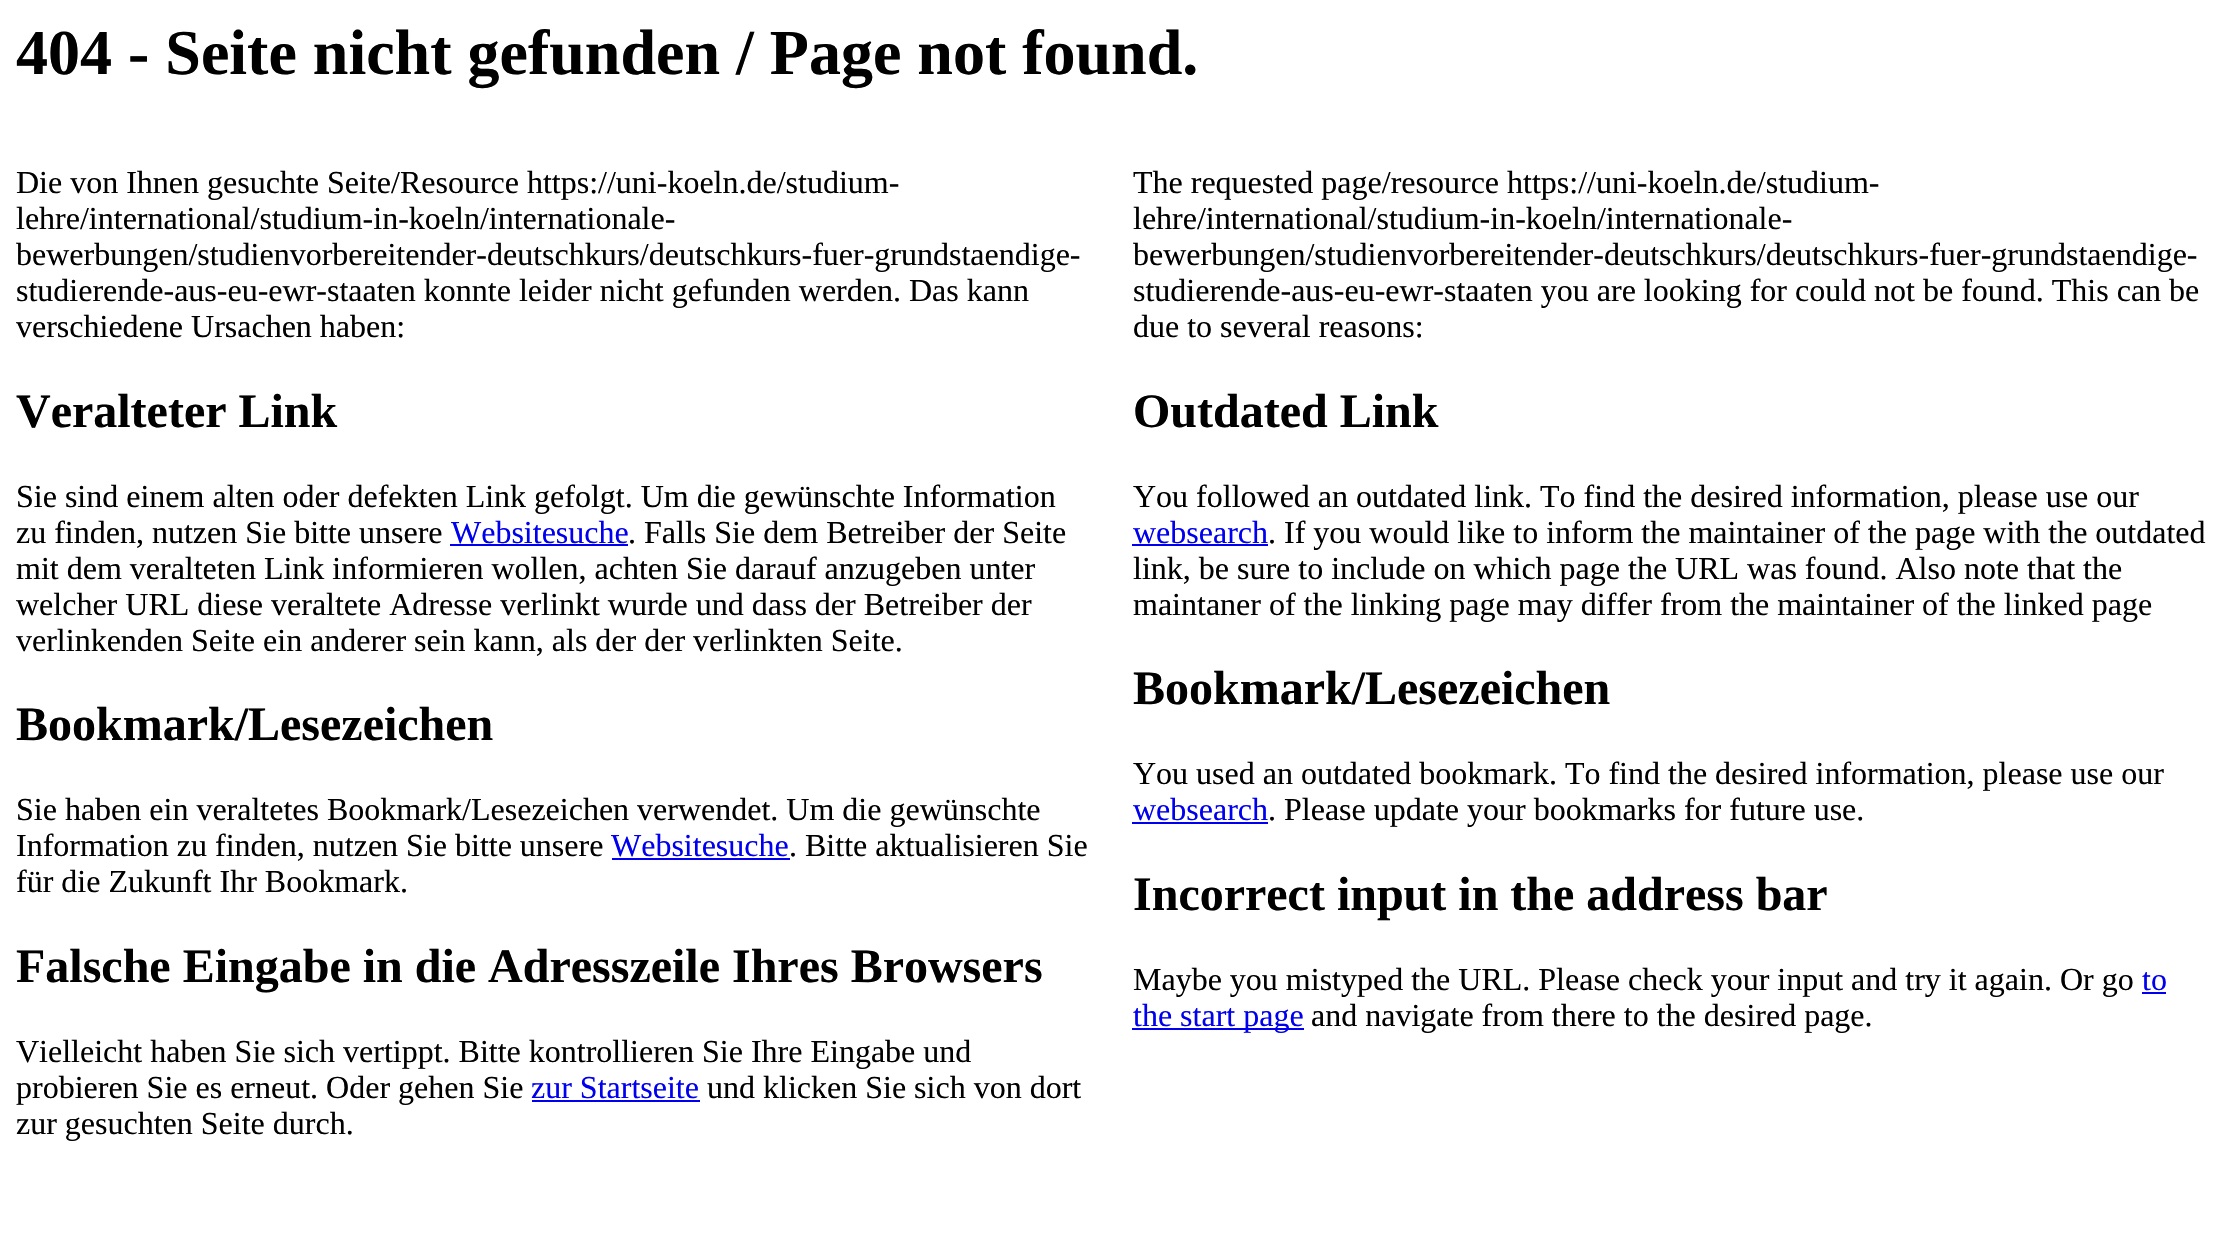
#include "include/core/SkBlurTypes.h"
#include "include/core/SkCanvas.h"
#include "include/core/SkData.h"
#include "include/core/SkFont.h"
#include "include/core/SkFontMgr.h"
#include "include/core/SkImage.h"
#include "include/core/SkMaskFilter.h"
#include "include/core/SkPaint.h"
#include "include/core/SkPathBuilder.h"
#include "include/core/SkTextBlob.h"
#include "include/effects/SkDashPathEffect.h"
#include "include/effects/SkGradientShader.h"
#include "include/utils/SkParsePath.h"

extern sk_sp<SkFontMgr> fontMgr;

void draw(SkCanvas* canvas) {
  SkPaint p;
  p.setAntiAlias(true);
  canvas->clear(SK_ColorWHITE);
  p.setColor(SkColorSetRGB(0, 0, 238));
  canvas->drawRect(SkRect::MakeLTRB(450, 544, 628, 546), p);
  canvas->drawRect(SkRect::MakeLTRB(612, 858, 790, 860), p);
  canvas->drawRect(SkRect::MakeLTRB(532, 1100, 700, 1102), p);
  canvas->drawRect(SkRect::MakeLTRB(1132, 544, 1268, 546), p);
  canvas->drawRect(SkRect::MakeLTRB(1132, 822, 1268, 824), p);
  canvas->drawRect(SkRect::MakeLTRB(2142, 992, 2166, 994), p);
  canvas->drawRect(SkRect::MakeLTRB(1132, 1028, 1304, 1030), p);
  SkFont font1(fontMgr->matchFamilyStyle("Liberation Serif", SkFontStyle::Bold()), 64);
  font1.setSubpixel(true);
  p.setColor(SK_ColorBLACK);
  canvas->drawString("404 - Seite nicht gefunden / Page not found.", 16, 74, font1, p);
  SkFont font2(fontMgr->matchFamilyStyle("Liberation Serif", SkFontStyle::Normal()), 32);
  font2.setSubpixel(true);
  canvas->drawString("Die von Ihnen gesuchte Seite/Resource https://uni-koeln.de/studium-", 16, 193, font2, p);
  canvas->drawString("lehre/international/studium-in-koeln/internationale-", 16, 229, font2, p);
  canvas->drawString("bewerbungen/studienvorbereitender-deutschkurs/deutschkurs-fuer-grundstaendige-", 16, 265, font2, p);
  canvas->drawString("studierende-aus-eu-ewr-staaten konnte leider nicht gefunden werden. Das kann", 16, 301, font2, p);
  canvas->drawString("verschiedene Ursachen haben:", 16, 337, font2, p);
  SkFont font3(fontMgr->matchFamilyStyle("Liberation Serif", SkFontStyle::Bold()), 48);
  font3.setSubpixel(true);
  canvas->drawString("Veralteter Link", 16, 427, font3, p);
  canvas->drawString("Sie sind einem alten oder defekten Link gefolgt. Um die gewünschte Information", 16, 507, font2, p);
  canvas->drawString("zu finden, nutzen Sie bitte unsere", 16, 543, font2, p);
  p.setColor(SkColorSetRGB(0, 0, 238));
  canvas->drawString("Websitesuche", 451, 543, font2, p);
  p.setColor(SK_ColorBLACK);
  canvas->drawString(". Falls Sie dem Betreiber der Seite", 628, 543, font2, p);
  canvas->drawString("mit dem veralteten Link informieren wollen, achten Sie darauf anzugeben unter", 16, 579, font2, p);
  canvas->drawString("welcher URL diese veraltete Adresse verlinkt wurde und dass der Betreiber der", 16, 615, font2, p);
  canvas->drawString("verlinkenden Seite ein anderer sein kann, als der der verlinkten Seite.", 16, 651, font2, p);
  canvas->drawString("Bookmark/Lesezeichen", 16, 740, font3, p);
  canvas->drawString("Sie haben ein veraltetes Bookmark/Lesezeichen verwendet. Um die gewünschte", 16, 820, font2, p);
  canvas->drawString("Information zu finden, nutzen Sie bitte unsere", 16, 856, font2, p);
  p.setColor(SkColorSetRGB(0, 0, 238));
  canvas->drawString("Websitesuche", 611, 856, font2, p);
  p.setColor(SK_ColorBLACK);
  canvas->drawString(". Bitte aktualisieren Sie", 789, 856, font2, p);
  canvas->drawString("für die Zukunft Ihr Bookmark.", 16, 892, font2, p);
  canvas->drawString("Falsche Eingabe in die Adresszeile Ihres Browsers", 16, 982, font3, p);
  canvas->drawString("Vielleicht haben Sie sich vertippt. Bitte kontrollieren Sie Ihre Eingabe und", 16, 1062, font2, p);
  canvas->drawString("probieren Sie es erneut. Oder gehen Sie", 16, 1098, font2, p);
  p.setColor(SkColorSetRGB(0, 0, 238));
  canvas->drawString("zur Startseite", 531, 1098, font2, p);
  p.setColor(SK_ColorBLACK);
  canvas->drawString("und klicken Sie sich von dort", 707, 1098, font2, p);
  canvas->drawString("zur gesuchten Seite durch.", 16, 1134, font2, p);
  canvas->drawString("The requested page/resource https://uni-koeln.de/studium-", 1133, 193, font2, p);
  canvas->drawString("lehre/international/studium-in-koeln/internationale-", 1133, 229, font2, p);
  canvas->drawString("bewerbungen/studienvorbereitender-deutschkurs/deutschkurs-fuer-grundstaendige-", 1133, 265, font2, p);
  canvas->drawString("studierende-aus-eu-ewr-staaten you are looking for could not be found. This can be", 1133, 301, font2, p);
  canvas->drawString("due to several reasons:", 1133, 337, font2, p);
  canvas->drawString("Outdated Link", 1133, 427, font3, p);
  canvas->drawString("You followed an outdated link. To find the desired information, please use our", 1133, 507, font2, p);
  p.setColor(SkColorSetRGB(0, 0, 238));
  canvas->drawString("websearch", 1133, 543, font2, p);
  p.setColor(SK_ColorBLACK);
  canvas->drawString(". If you would like to inform the maintainer of the page with the outdated", 1268, 543, font2, p);
  canvas->drawString("link, be sure to include on which page the URL was found. Also note that the", 1133, 579, font2, p);
  canvas->drawString("maintaner of the linking page may differ from the maintainer of the linked page", 1133, 615, font2, p);
  canvas->drawString("Bookmark/Lesezeichen", 1133, 704, font3, p);
  canvas->drawString("You used an outdated bookmark. To find the desired information, please use our", 1133, 784, font2, p);
  p.setColor(SkColorSetRGB(0, 0, 238));
  canvas->drawString("websearch", 1133, 820, font2, p);
  p.setColor(SK_ColorBLACK);
  canvas->drawString(". Please update your bookmarks for future use.", 1268, 820, font2, p);
  canvas->drawString("Incorrect input in the address bar", 1133, 910, font3, p);
  canvas->drawString("Maybe you mistyped the URL. Please check your input and try it again. Or go", 1133, 990, font2, p);
  p.setColor(SkColorSetRGB(0, 0, 238));
  canvas->drawString("to", 2142, 990, font2, p);
  canvas->drawString("the start page", 1133, 1026, font2, p);
  p.setColor(SK_ColorBLACK);
  canvas->drawString("and navigate from there to the desired page.", 1311, 1026, font2, p);
}
